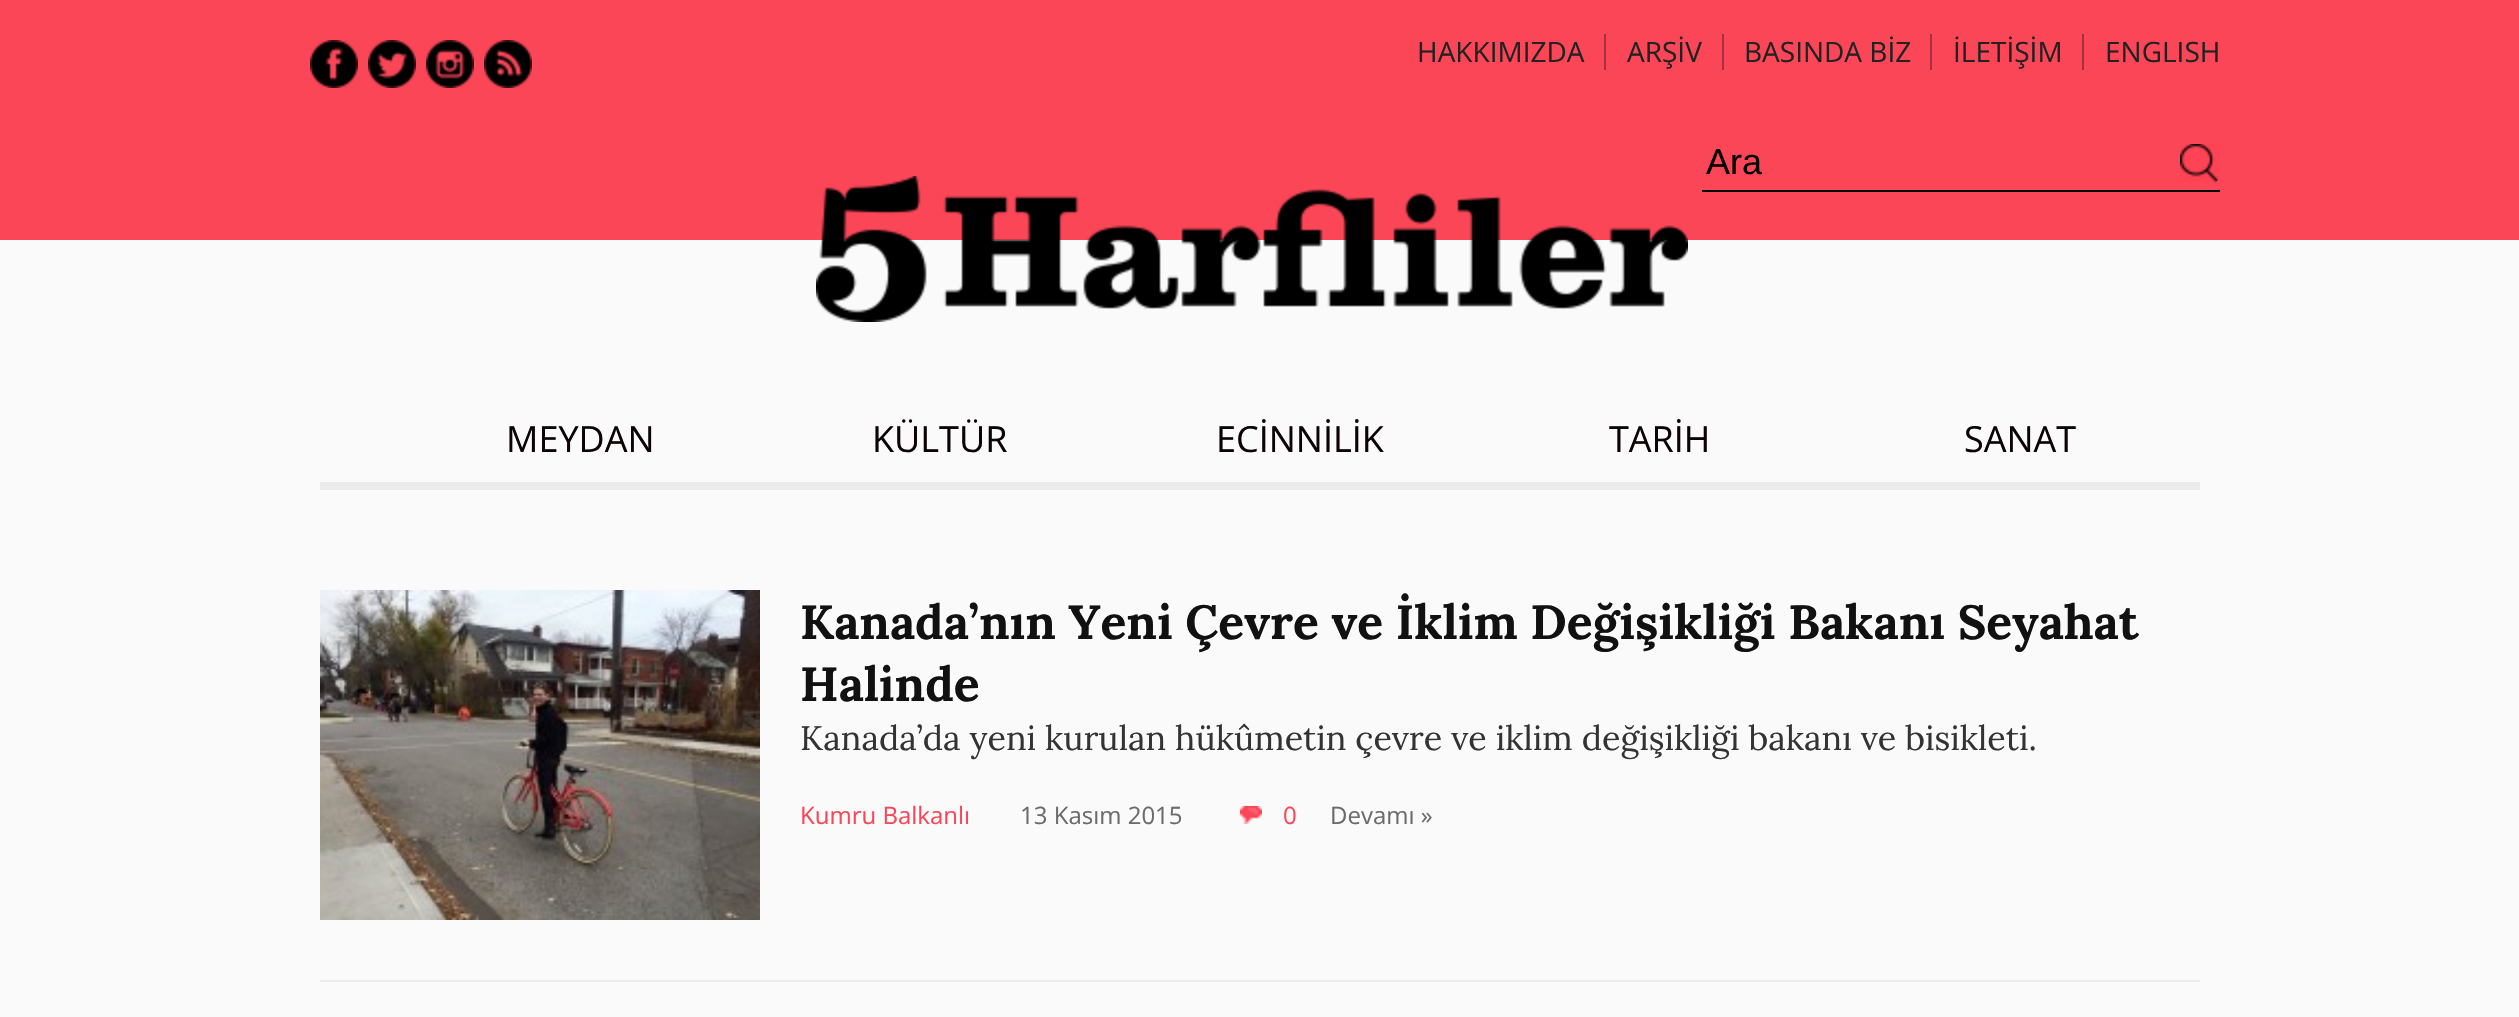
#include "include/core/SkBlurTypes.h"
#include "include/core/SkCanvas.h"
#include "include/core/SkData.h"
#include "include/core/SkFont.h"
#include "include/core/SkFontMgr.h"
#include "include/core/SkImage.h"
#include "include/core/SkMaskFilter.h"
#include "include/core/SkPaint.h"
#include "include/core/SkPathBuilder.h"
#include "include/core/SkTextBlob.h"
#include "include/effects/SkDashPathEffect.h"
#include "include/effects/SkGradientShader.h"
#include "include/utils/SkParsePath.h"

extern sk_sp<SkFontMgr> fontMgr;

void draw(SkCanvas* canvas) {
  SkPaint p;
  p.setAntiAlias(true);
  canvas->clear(SkColorSetRGB(250, 250, 250));
  p.setColor(SkColorSetRGB(251, 70, 88));
  canvas->drawRect(SkRect::MakeLTRB(0, 0, 2519, 240), p);
  canvas->drawImageRect(SkImages::DeferredFromEncodedData(SkData::MakeFromFileName("images/1.png")), SkRect::MakeLTRB(310, 40, 358, 88), SkSamplingOptions());
  canvas->drawImageRect(SkImages::DeferredFromEncodedData(SkData::MakeFromFileName("images/2.png")), SkRect::MakeLTRB(368, 40, 416, 88), SkSamplingOptions());
  canvas->drawImageRect(SkImages::DeferredFromEncodedData(SkData::MakeFromFileName("images/3.png")), SkRect::MakeLTRB(426, 40, 474, 88), SkSamplingOptions());
  canvas->drawImageRect(SkImages::DeferredFromEncodedData(SkData::MakeFromFileName("images/4.png")), SkRect::MakeLTRB(484, 40, 532, 88), SkSamplingOptions());
  p.setColor(SkColorSetRGB(166, 48, 61));
  canvas->drawRect(SkRect::MakeLTRB(1604, 34, 1606, 70), p);
  canvas->drawRect(SkRect::MakeLTRB(1722, 34, 1724, 70), p);
  canvas->drawRect(SkRect::MakeLTRB(1930, 34, 1932, 70), p);
  canvas->drawRect(SkRect::MakeLTRB(2082, 34, 2084, 70), p);
  p.setColor(SK_ColorBLACK);
  canvas->drawRect(SkRect::MakeLTRB(1702, 190, 2220, 192), p);
  canvas->drawImageRect(SkImages::DeferredFromEncodedData(SkData::MakeFromFileName("images/5.png")), SkRect::MakeLTRB(2180, 144, 2220, 184), SkSamplingOptions());
  canvas->drawImageRect(SkImages::DeferredFromEncodedData(SkData::MakeFromFileName("images/6.png")), SkRect::MakeLTRB(816, 176, 1688, 322), SkSamplingOptions());
  p.setColor(SkColorSetRGB(235, 235, 235));
  canvas->drawRect(SkRect::MakeLTRB(320, 482, 2200, 490), p);
  canvas->drawImageRect(SkImages::DeferredFromEncodedData(SkData::MakeFromFileName("images/7.png")), SkRect::MakeLTRB(320, 590, 760, 920), SkSamplingOptions());
  canvas->drawImageRect(SkImages::DeferredFromEncodedData(SkData::MakeFromFileName("images/8.png")), SkRect::MakeLTRB(1240, 806, 1262, 824), SkSamplingOptions());
  canvas->drawRect(SkRect::MakeLTRB(320, 980, 2200, 982), p);
  SkFont font1(fontMgr->matchFamilyStyle("Open Sans", SkFontStyle::Normal()), 28);
  font1.setSubpixel(true);
  p.setColor(SkColorSetRGB(34, 34, 34));
  canvas->drawString("HAKKIMIZDA", 1417, 62, font1, p);
  canvas->drawString("ARŞİV", 1627, 62, font1, p);
  canvas->drawString("BASINDA BİZ", 1744, 62, font1, p);
  canvas->drawString("İLETİŞİM", 1953, 62, font1, p);
  canvas->drawString("ENGLISH", 2105, 62, font1, p);
  SkFont font2(fontMgr->matchFamilyStyle("Liberation Sans", SkFontStyle::Normal()), 36);
  font2.setSubpixel(true);
  p.setColor(SK_ColorBLACK);
  canvas->drawString("Ara", 1706, 174, font2, p);
  SkFont font3(fontMgr->matchFamilyStyle("Open Sans", SkFontStyle::Normal()), 36);
  font3.setSubpixel(true);
  p.setColor(SkColorSetRGB(11, 3, 4));
  canvas->drawString("MEYDAN", 506, 452, font3, p);
  canvas->drawString("KÜLTÜR", 872, 452, font3, p);
  canvas->drawString("ECİNNİLİK", 1216, 452, font3, p);
  canvas->drawString("TARİH", 1609, 452, font3, p);
  canvas->drawString("SANAT", 1964, 452, font3, p);
  SkFont font4(fontMgr->matchFamilyStyle("Lora", SkFontStyle::Bold()), 48);
  font4.setSubpixel(true);
  p.setColor(SkColorSetRGB(17, 17, 17));
  canvas->drawString("Kanada’nın Yeni Çevre ve İklim Değişikliği Bakanı Seyahat", 800, 639, font4, p);
  canvas->drawString("Halinde", 800, 701, font4, p);
  SkFont font5(fontMgr->matchFamilyStyle("Lora", SkFontStyle::Normal()), 34);
  font5.setSubpixel(true);
  p.setColor(SkColorSetRGB(51, 51, 51));
  canvas->drawString("Kanada’da yeni kurulan hükûmetin çevre ve iklim değişikliği bakanı ve bisikleti.", 800, 750, font5, p);
  SkFont font6(fontMgr->matchFamilyStyle("Open Sans", SkFontStyle::Normal()), 24);
  font6.setSubpixel(true);
  p.setColor(SkColorSetRGB(251, 70, 88));
  canvas->drawString("Kumru Balkanlı", 800, 824, font6, p);
  p.setColor(SkColorSetRGB(107, 107, 107));
  canvas->drawString("13 Kasım 2015", 1020, 824, font6, p);
  p.setColor(SkColorSetRGB(251, 70, 88));
  canvas->drawString("0", 1283, 824, font6, p);
  p.setColor(SkColorSetRGB(107, 107, 107));
  canvas->drawString("Devamı »", 1330, 824, font6, p);
}
